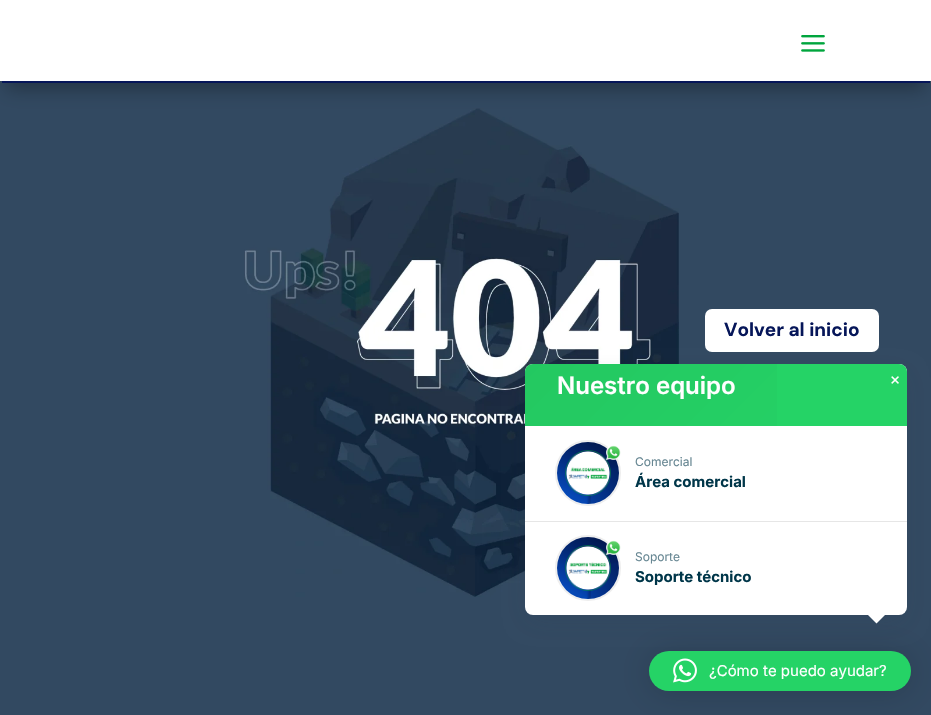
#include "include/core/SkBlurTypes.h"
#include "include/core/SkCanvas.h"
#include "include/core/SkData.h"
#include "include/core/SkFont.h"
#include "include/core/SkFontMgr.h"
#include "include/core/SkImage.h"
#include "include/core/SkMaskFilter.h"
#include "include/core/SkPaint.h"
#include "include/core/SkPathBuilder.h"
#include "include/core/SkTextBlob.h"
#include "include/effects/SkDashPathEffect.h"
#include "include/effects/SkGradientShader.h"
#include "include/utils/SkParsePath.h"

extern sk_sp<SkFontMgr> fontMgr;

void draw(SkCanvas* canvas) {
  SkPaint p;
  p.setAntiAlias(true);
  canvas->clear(SkColorSetRGB(50, 73, 97));
  canvas->drawImageRect(SkImages::DeferredFromEncodedData(SkData::MakeFromFileName("images/2.png")), SkRect::MakeLTRB(244, 108, 679, 597), SkSamplingOptions());
  p.setColor(SkColorSetARGB(77, 0, 0, 0));
  p.setMaskFilter(SkMaskFilter::MakeBlur(kNormal_SkBlurStyle, 9));
  canvas->drawRect(SkRect::MakeLTRB(6, 18, 925, 89), p);
  p.setMaskFilter(nullptr);
  p.setColor(SkColorSetRGB(6, 22, 89));
  canvas->drawRect(SkRect::MakeLTRB(2, 81, 930, 83), p);
  p.setColor(SK_ColorWHITE);
  canvas->drawRect(SkRect::MakeLTRB(0, 0, 931, 81), p);
  canvas->drawImageRect(SkImages::DeferredFromEncodedData(SkData::MakeFromFileName("images/1.png")), SkRect::MakeLTRB(801, 35, 825, 52), SkSamplingOptions());
  canvas->drawRoundRect(SkRect::MakeLTRB(705, 309, 879, 352), 7, 7, p);
  p.setColor(SkColorSetARGB(41, 0, 0, 0));
  p.setMaskFilter(SkMaskFilter::MakeBlur(kNormal_SkBlurStyle, 16));
  canvas->drawRoundRect(SkRect::MakeLTRB(649, 653, 911, 693), 20, 20, p);
  p.setMaskFilter(nullptr);
  p.setColor(SkColorSetRGB(37, 211, 102));
  canvas->drawRoundRect(SkRect::MakeLTRB(649, 651, 911, 691), 20, 20, p);
  p.setColor(SkColorSetARGB(38, 45, 62, 79));
  p.setMaskFilter(SkMaskFilter::MakeBlur(kNormal_SkBlurStyle, 12.5f));
  canvas->drawRoundRect(SkRect::MakeLTRB(530, 377, 902, 618), 3, 3, p);
  p.setMaskFilter(nullptr);
  p.setColor(SK_ColorWHITE);
  canvas->drawRoundRect(SkRect::MakeLTRB(525, 364, 907, 615), 8, 8, p);
  p.setColor(SkColorSetRGB(37, 211, 102));
  canvas->drawPath(SkPathBuilder().moveTo(533, 364).lineTo(899, 364).cubicTo(903.5f, 364, 907, 367.5f, 907, 372).lineTo(907, 426).lineTo(525, 426).lineTo(525, 372).cubicTo(525, 367.5f, 528.5f, 364, 533, 364).close().detach(), p);
  {
    const SkColor colors[] = {SkColorSetARGB(0, 0, 0, 0), SkColorSetARGB(13, 0, 0, 0)};
    const float stops[] = {0, 1};
    const SkPoint ends[] = {{827, 506}, {605, 284}};
    p.setShader(SkGradientShader::MakeLinear(ends, colors, stops, 2, SkTileMode::kClamp));
    p.setAlpha(255);
  }
  canvas->drawRect(SkRect::MakeLTRB(525, 364, 777, 426), p);
  p.setStyle(SkPaint::kStroke_Style);
  p.setStrokeWidth(2);
  p.setShader(nullptr);
  p.setColor(SkColorSetRGB(238, 238, 238));
  canvas->drawCircle(588, 473, 32, p);
  canvas->drawImageRect(SkImages::DeferredFromEncodedData(SkData::MakeFromFileName("images/3.png")), SkRect::MakeLTRB(557, 442, 619, 504), SkSamplingOptions());
  canvas->drawImageRect(SkImages::DeferredFromEncodedData(SkData::MakeFromFileName("images/4.png")), SkRect::MakeLTRB(606, 445, 621, 460), SkSamplingOptions());
  p.setStyle(SkPaint::kFill_Style);
  p.setColor(SkColorSetRGB(230, 230, 230));
  canvas->drawRect(SkRect::MakeLTRB(525, 521, 907, 522), p);
  p.setStyle(SkPaint::kStroke_Style);
  p.setColor(SkColorSetRGB(238, 238, 238));
  canvas->drawCircle(588, 568, 32, p);
  canvas->drawImageRect(SkImages::DeferredFromEncodedData(SkData::MakeFromFileName("images/5.png")), SkRect::MakeLTRB(557, 537, 619, 599), SkSamplingOptions());
  canvas->drawImageRect(SkImages::DeferredFromEncodedData(SkData::MakeFromFileName("images/6.png")), SkRect::MakeLTRB(606, 540, 621, 555), SkSamplingOptions());
  p.setStyle(SkPaint::kFill_Style);
  p.setColor(SK_ColorWHITE);
  canvas->drawPath(SkPathBuilder().moveTo(876.5f, 605.5f).lineTo(885.5f, 614.5f).lineTo(876.5f, 623.5f).lineTo(867.5f, 614.5f).close().detach(), p);
  canvas->drawImageRect(SkImages::DeferredFromEncodedData(SkData::MakeFromFileName("images/7.png")), SkRect::MakeLTRB(673, 658, 697, 683), SkSamplingOptions());
  SkFont font1(fontMgr->matchFamilyStyle("DM Sans", SkFontStyle::Bold()), 19);
  font1.setSubpixel(true);
  p.setColor(SkColorSetRGB(6, 22, 89));
  canvas->drawString("Volver al inicio", 724, 336, font1, p);
  SkFont font2(fontMgr->matchFamilyStyle("Inter", SkFontStyle(600, SkFontStyle::kNormal_Width, SkFontStyle::kUpright_Slant)), 24);
  font2.setSubpixel(true);
  p.setColor(SK_ColorWHITE);
  canvas->drawString("Nuestro equipo", 557, 394, font2, p);
  SkFont font3(fontMgr->matchFamilyStyle("Liberation Serif", SkFontStyle::Bold()), 18);
  font3.setSubpixel(true);
  canvas->drawString("×", 890, 386, font3, p);
  SkFont font4(fontMgr->matchFamilyStyle("Inter", SkFontStyle::Normal()), 12);
  font4.setSubpixel(true);
  p.setColor(SkColorSetRGB(102, 134, 146));
  canvas->drawString("Comercial", 635, 466, font4, p);
  SkFont font5(fontMgr->matchFamilyStyle("Inter", SkFontStyle::Bold()), 15);
  font5.setSubpixel(true);
  p.setColor(SkColorSetRGB(0, 54, 73));
  canvas->drawString("Área comercial", 635, 487, font5, p);
  p.setColor(SkColorSetRGB(102, 134, 146));
  canvas->drawString("Soporte", 635, 561, font4, p);
  p.setColor(SkColorSetRGB(0, 54, 73));
  canvas->drawString("Soporte técnico", 635, 582, font5, p);
  SkFont font6(fontMgr->matchFamilyStyle("Inter", SkFontStyle::Normal()), 15);
  font6.setSubpixel(true);
  p.setColor(SK_ColorWHITE);
  canvas->drawString("¿Cómo te puedo ayudar?", 709, 676, font6, p);
}
